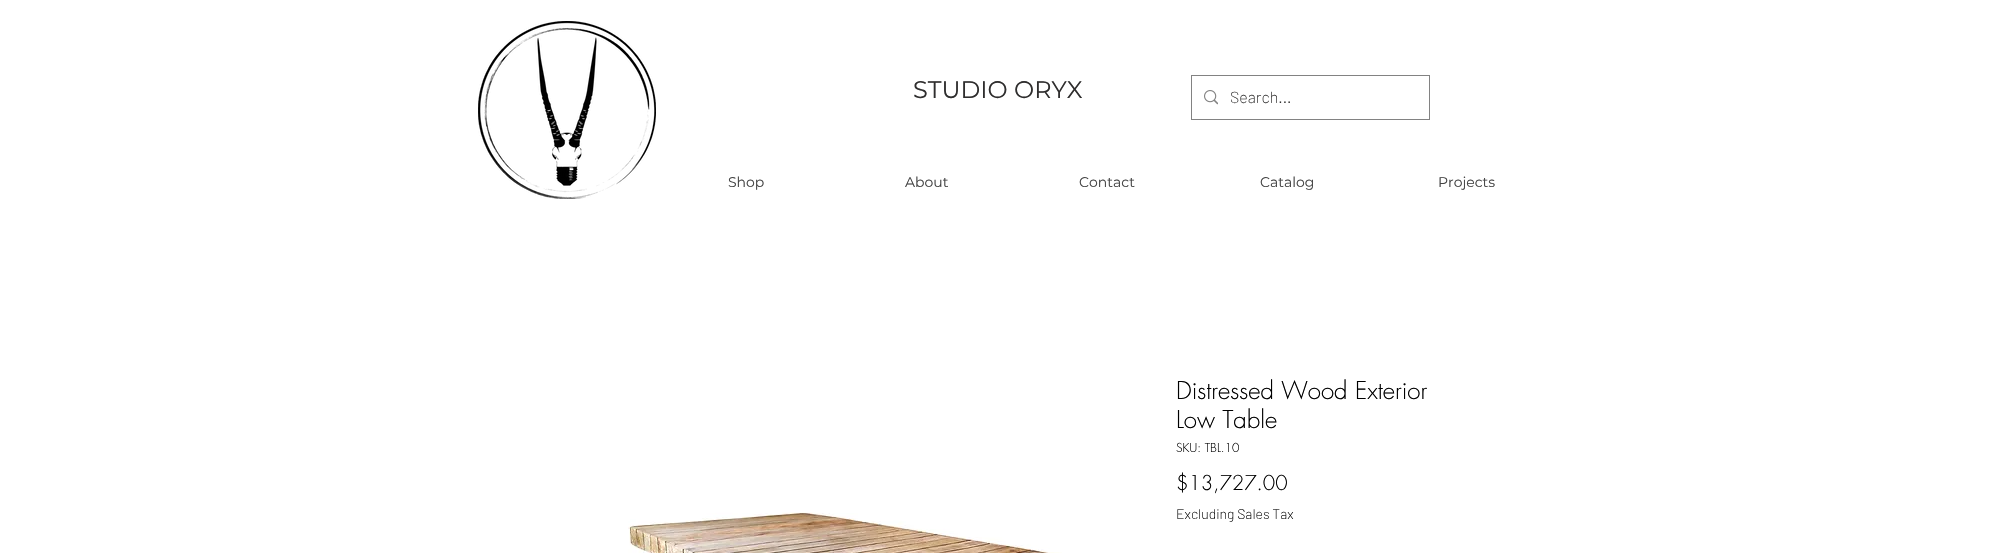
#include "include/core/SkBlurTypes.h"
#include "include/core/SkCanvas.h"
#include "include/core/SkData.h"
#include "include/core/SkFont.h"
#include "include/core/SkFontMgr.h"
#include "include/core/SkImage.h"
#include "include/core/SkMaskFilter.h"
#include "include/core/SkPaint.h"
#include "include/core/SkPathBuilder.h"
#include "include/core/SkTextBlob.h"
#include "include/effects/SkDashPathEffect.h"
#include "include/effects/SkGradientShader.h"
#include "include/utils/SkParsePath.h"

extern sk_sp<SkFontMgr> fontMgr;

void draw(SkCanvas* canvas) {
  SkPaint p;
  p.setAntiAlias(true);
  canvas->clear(SK_ColorWHITE);
  canvas->drawImageRect(SkImages::DeferredFromEncodedData(SkData::MakeFromFileName("images/1.png")), SkRect::MakeLTRB(478, 21, 656, 199), SkSamplingOptions());
  p.setStyle(SkPaint::kStroke_Style);
  p.setStrokeWidth(1);
  p.setColor(SkColorSetRGB(130, 130, 130));
  canvas->drawRect(SkRect::MakeLTRB(1191.5f, 75.5f, 1429.5f, 119.5f), p);
  canvas->drawImageRect(SkImages::DeferredFromEncodedData(SkData::MakeFromFileName("images/2.png")), SkRect::MakeLTRB(1204, 90, 1218, 105), SkSamplingOptions());
  canvas->drawImageRect(SkImages::DeferredFromEncodedData(SkData::MakeFromFileName("images/3.png")), SkRect::MakeLTRB(628, 512, 1062, 553), SkSamplingOptions());
  SkFont font1(fontMgr->matchFamilyStyle("Montserrat", SkFontStyle::Normal()), 24);
  font1.setSubpixel(true);
  p.setStyle(SkPaint::kFill_Style);
  p.setColor(SkColorSetRGB(47, 46, 46));
  canvas->drawString("STUDIO ORYX", 913, 98, font1, p);
  SkFont font2(fontMgr->matchFamilyStyle("Barlow", SkFontStyle(200, SkFontStyle::kNormal_Width, SkFontStyle::kUpright_Slant)), 16);
  font2.setSubpixel(true);
  canvas->drawString("Search...", 1230, 103, font2, p);
  SkFont font3(fontMgr->matchFamilyStyle("Montserrat", SkFontStyle::Normal()), 14);
  font3.setSubpixel(true);
  p.setColor(SkColorSetRGB(68, 68, 68));
  canvas->drawString("Shop", 728, 187, font3, p);
  canvas->drawString("About", 905, 187, font3, p);
  canvas->drawString("Contact", 1079, 187, font3, p);
  canvas->drawString("Catalog", 1260, 187, font3, p);
  canvas->drawString("Projects", 1438, 187, font3, p);
  SkFont font4(fontMgr->matchFamilyStyle("futura", SkFontStyle(300, SkFontStyle::kNormal_Width, SkFontStyle::kUpright_Slant)), 24);
  font4.setSubpixel(true);
  p.setColor(SK_ColorBLACK);
  canvas->drawString("Distressed Wood Exterior", 1176, 399, font4, p);
  canvas->drawString("Low Table", 1176, 428, font4, p);
  SkFont font5(fontMgr->matchFamilyStyle("futura", SkFontStyle(300, SkFontStyle::kNormal_Width, SkFontStyle::kUpright_Slant)), 12);
  font5.setSubpixel(true);
  canvas->drawString("SKU: TBL.10", 1176, 452, font5, p);
  SkFont font6(fontMgr->matchFamilyStyle("futura", SkFontStyle(300, SkFontStyle::kNormal_Width, SkFontStyle::kUpright_Slant)), 20);
  font6.setSubpixel(true);
  canvas->drawString("$13,727.00", 1176, 490, font6, p);
  SkFont font7(fontMgr->matchFamilyStyle("Barlow", SkFontStyle(200, SkFontStyle::kNormal_Width, SkFontStyle::kUpright_Slant)), 14);
  font7.setSubpixel(true);
  canvas->drawString("Excluding Sales Tax", 1176, 519, font7, p);
}
